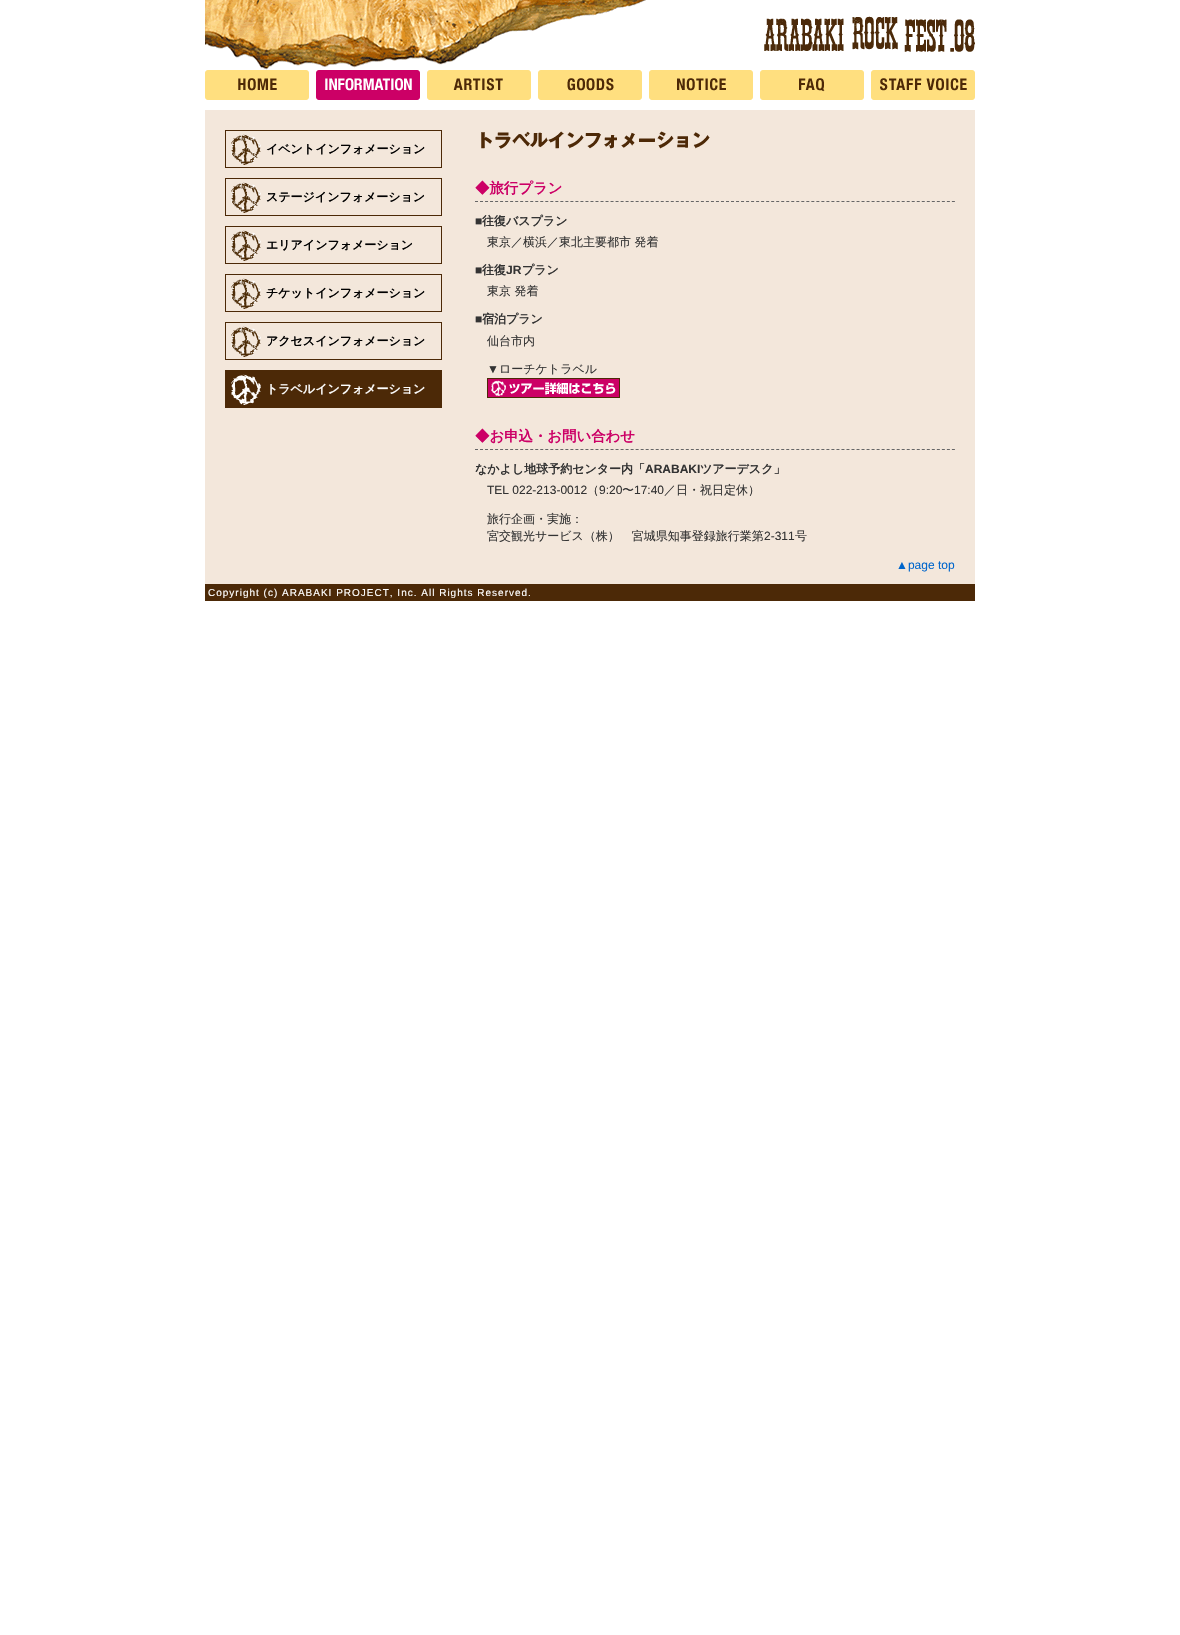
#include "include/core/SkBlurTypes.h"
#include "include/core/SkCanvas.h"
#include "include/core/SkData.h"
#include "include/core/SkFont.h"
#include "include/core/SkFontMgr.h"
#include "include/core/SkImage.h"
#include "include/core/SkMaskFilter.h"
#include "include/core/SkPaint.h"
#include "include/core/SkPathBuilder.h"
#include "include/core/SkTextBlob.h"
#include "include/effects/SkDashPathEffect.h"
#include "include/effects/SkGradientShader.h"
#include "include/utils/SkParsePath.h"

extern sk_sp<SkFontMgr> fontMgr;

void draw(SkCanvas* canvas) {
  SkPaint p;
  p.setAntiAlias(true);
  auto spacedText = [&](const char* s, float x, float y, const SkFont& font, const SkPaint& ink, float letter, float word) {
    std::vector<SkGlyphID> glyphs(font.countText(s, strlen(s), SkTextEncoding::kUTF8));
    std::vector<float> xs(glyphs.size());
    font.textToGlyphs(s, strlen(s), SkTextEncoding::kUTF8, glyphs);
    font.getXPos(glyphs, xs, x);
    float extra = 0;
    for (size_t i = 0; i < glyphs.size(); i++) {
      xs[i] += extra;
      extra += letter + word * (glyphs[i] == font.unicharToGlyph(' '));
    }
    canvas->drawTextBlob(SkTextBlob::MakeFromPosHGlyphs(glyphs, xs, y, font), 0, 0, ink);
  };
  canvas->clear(SK_ColorWHITE);
  p.setColor(SkColorSetRGB(243, 231, 219));
  canvas->drawRect(SkRect::MakeLTRB(205, 110, 975, 584), p);
  canvas->drawImageRect(SkImages::DeferredFromEncodedData(SkData::MakeFromFileName("images/1.png")), SkRect::MakeLTRB(205, 0, 975, 70), SkSamplingOptions());
  canvas->drawImageRect(SkImages::DeferredFromEncodedData(SkData::MakeFromFileName("images/2.png")), SkRect::MakeLTRB(205, 70, 309, 100), SkSamplingOptions());
  canvas->drawImageRect(SkImages::DeferredFromEncodedData(SkData::MakeFromFileName("images/3.png")), SkRect::MakeLTRB(316, 70, 420, 100), SkSamplingOptions());
  canvas->drawImageRect(SkImages::DeferredFromEncodedData(SkData::MakeFromFileName("images/4.png")), SkRect::MakeLTRB(427, 70, 531, 100), SkSamplingOptions());
  canvas->drawImageRect(SkImages::DeferredFromEncodedData(SkData::MakeFromFileName("images/5.png")), SkRect::MakeLTRB(538, 70, 642, 100), SkSamplingOptions());
  canvas->drawImageRect(SkImages::DeferredFromEncodedData(SkData::MakeFromFileName("images/6.png")), SkRect::MakeLTRB(649, 70, 753, 100), SkSamplingOptions());
  canvas->drawImageRect(SkImages::DeferredFromEncodedData(SkData::MakeFromFileName("images/7.png")), SkRect::MakeLTRB(760, 70, 864, 100), SkSamplingOptions());
  canvas->drawImageRect(SkImages::DeferredFromEncodedData(SkData::MakeFromFileName("images/8.png")), SkRect::MakeLTRB(871, 70, 975, 100), SkSamplingOptions());
  canvas->drawImageRect(SkImages::DeferredFromEncodedData(SkData::MakeFromFileName("images/9.png")), SkRect::MakeLTRB(231, 134, 261, 165), SkSamplingOptions());
  p.setStyle(SkPaint::kStroke_Style);
  p.setStrokeWidth(1);
  p.setColor(SkColorSetRGB(76, 41, 7));
  canvas->drawRect(SkRect::MakeLTRB(225.5f, 130.5f, 441.5f, 167.5f), p);
  canvas->drawImageRect(SkImages::DeferredFromEncodedData(SkData::MakeFromFileName("images/9.png")), SkRect::MakeLTRB(231, 182, 261, 213), SkSamplingOptions());
  canvas->drawRect(SkRect::MakeLTRB(225.5f, 178.5f, 441.5f, 215.5f), p);
  canvas->drawImageRect(SkImages::DeferredFromEncodedData(SkData::MakeFromFileName("images/9.png")), SkRect::MakeLTRB(231, 230, 261, 261), SkSamplingOptions());
  canvas->drawRect(SkRect::MakeLTRB(225.5f, 226.5f, 441.5f, 263.5f), p);
  canvas->drawImageRect(SkImages::DeferredFromEncodedData(SkData::MakeFromFileName("images/9.png")), SkRect::MakeLTRB(231, 278, 261, 309), SkSamplingOptions());
  canvas->drawRect(SkRect::MakeLTRB(225.5f, 274.5f, 441.5f, 311.5f), p);
  canvas->drawImageRect(SkImages::DeferredFromEncodedData(SkData::MakeFromFileName("images/9.png")), SkRect::MakeLTRB(231, 326, 261, 357), SkSamplingOptions());
  canvas->drawRect(SkRect::MakeLTRB(225.5f, 322.5f, 441.5f, 359.5f), p);
  p.setStyle(SkPaint::kFill_Style);
  canvas->drawRect(SkRect::MakeLTRB(225, 370, 442, 408), p);
  canvas->drawImageRect(SkImages::DeferredFromEncodedData(SkData::MakeFromFileName("images/10.png")), SkRect::MakeLTRB(231, 374, 261, 405), SkSamplingOptions());
  canvas->drawImageRect(SkImages::DeferredFromEncodedData(SkData::MakeFromFileName("images/11.png")), SkRect::MakeLTRB(481, 131, 710, 149), SkSamplingOptions());
  p.setStyle(SkPaint::kStroke_Style);
  p.setColor(SkColorSetRGB(102, 102, 102));
  p.setPathEffect(SkDashPathEffect::Make({{3, 2.02f}}, 0));
  canvas->drawPath(SkPathBuilder().moveTo(475, 201.5f).lineTo(955, 201.5f).detach(), p);
  p.setPathEffect(nullptr);
  canvas->drawImageRect(SkImages::DeferredFromEncodedData(SkData::MakeFromFileName("images/12.png")), SkRect::MakeLTRB(487, 378, 620, 398), SkSamplingOptions());
  p.setPathEffect(SkDashPathEffect::Make({{3, 2.02f}}, 0));
  canvas->drawPath(SkPathBuilder().moveTo(475, 449.5f).lineTo(955, 449.5f).detach(), p);
  p.setPathEffect(nullptr);
  p.setStyle(SkPaint::kFill_Style);
  p.setColor(SkColorSetRGB(76, 41, 7));
  canvas->drawRect(SkRect::MakeLTRB(205, 584, 975, 601), p);
  SkFont font1(fontMgr->matchFamilyStyle("WenQuanYi Zen Hei", SkFontStyle::Bold()), 12);
  font1.setSubpixel(true);
  p.setColor(SK_ColorBLACK);
  canvas->drawString("イベントインフォメーション", 266, 153, font1, p);
  canvas->drawString("ステージインフォメーション", 266, 201, font1, p);
  canvas->drawString("エリアインフォメーション", 266, 249, font1, p);
  canvas->drawString("チケットインフォメーション", 266, 297, font1, p);
  canvas->drawString("アクセスインフォメーション", 266, 345, font1, p);
  p.setColor(SK_ColorWHITE);
  canvas->drawString("トラベルインフォメーション", 266, 393, font1, p);
  SkFont font2(fontMgr->matchFamilyStyle("WenQuanYi Zen Hei", SkFontStyle::Bold()), 14.4f);
  font2.setSubpixel(true);
  p.setColor(SkColorSetRGB(204, 0, 102));
  canvas->drawString("◆旅行プラン", 475, 193, font2, p);
  SkFont font3(fontMgr->matchFamilyStyle("Liberation Sans", SkFontStyle::Bold()), 12);
  font3.setSubpixel(true);
  p.setColor(SkColorSetRGB(51, 51, 51));
  canvas->drawString("■", 475, 225, font3, p);
  canvas->drawString("往復バスプラン", 482, 225, font1, p);
  SkFont font4(fontMgr->matchFamilyStyle("WenQuanYi Zen Hei", SkFontStyle(500, SkFontStyle::kNormal_Width, SkFontStyle::kUpright_Slant)), 12);
  font4.setSubpixel(true);
  canvas->drawString("東京／横浜／東北主要都市 発着", 487, 246, font4, p);
  canvas->drawString("■", 475, 274, font3, p);
  canvas->drawString("往復", 482, 274, font1, p);
  canvas->drawString("JR", 506, 274, font3, p);
  canvas->drawString("プラン", 522, 274, font1, p);
  canvas->drawString("東京 発着", 487, 295, font4, p);
  canvas->drawString("■", 475, 323, font3, p);
  canvas->drawString("宿泊プラン", 482, 323, font1, p);
  canvas->drawString("仙台市内", 487, 345, font4, p);
  SkFont font5(fontMgr->matchFamilyStyle("Liberation Sans", SkFontStyle::Normal()), 12);
  font5.setSubpixel(true);
  canvas->drawString("▼", 487, 373, font5, p);
  canvas->drawString("ローチケトラベル", 499, 373, font4, p);
  p.setColor(SkColorSetRGB(204, 0, 102));
  canvas->drawString("◆お申込・お問い合わせ", 475, 441, font2, p);
  p.setColor(SkColorSetRGB(51, 51, 51));
  canvas->drawString("なかよし地球予約センター内「", 475, 473, font1, p);
  canvas->drawString("ARABAKI", 645, 473, font3, p);
  canvas->drawString("ツアーデスク」", 700, 473, font1, p);
  canvas->drawString("TEL 022-213-0012", 487, 494, font5, p);
  canvas->drawString("（", 587, 494, font4, p);
  canvas->drawString("9:20", 599, 494, font5, p);
  canvas->drawString("〜", 622, 494, font4, p);
  canvas->drawString("17:40", 634, 494, font5, p);
  canvas->drawString("／日・祝日定休）", 664, 494, font4, p);
  canvas->drawString("旅行企画・実施：", 487, 523, font4, p);
  canvas->drawString("宮交観光サービス（株）　宮城県知事登録旅行業第", 487, 540, font4, p);
  canvas->drawString("2-311", 764, 540, font5, p);
  canvas->drawString("号", 795, 540, font4, p);
  p.setColor(SkColorSetRGB(0, 102, 204));
  canvas->drawString("▲page top", 896, 569, font5, p);
  SkFont font6(fontMgr->matchFamilyStyle("Liberation Sans", SkFontStyle::Normal()), 10);
  font6.setSubpixel(true);
  p.setColor(SK_ColorWHITE);
  spacedText("Copyright (c) ARABAKI PROJECT, Inc. All Rights Reserved.", 208, 596, font6, p, 1, 0);
}
